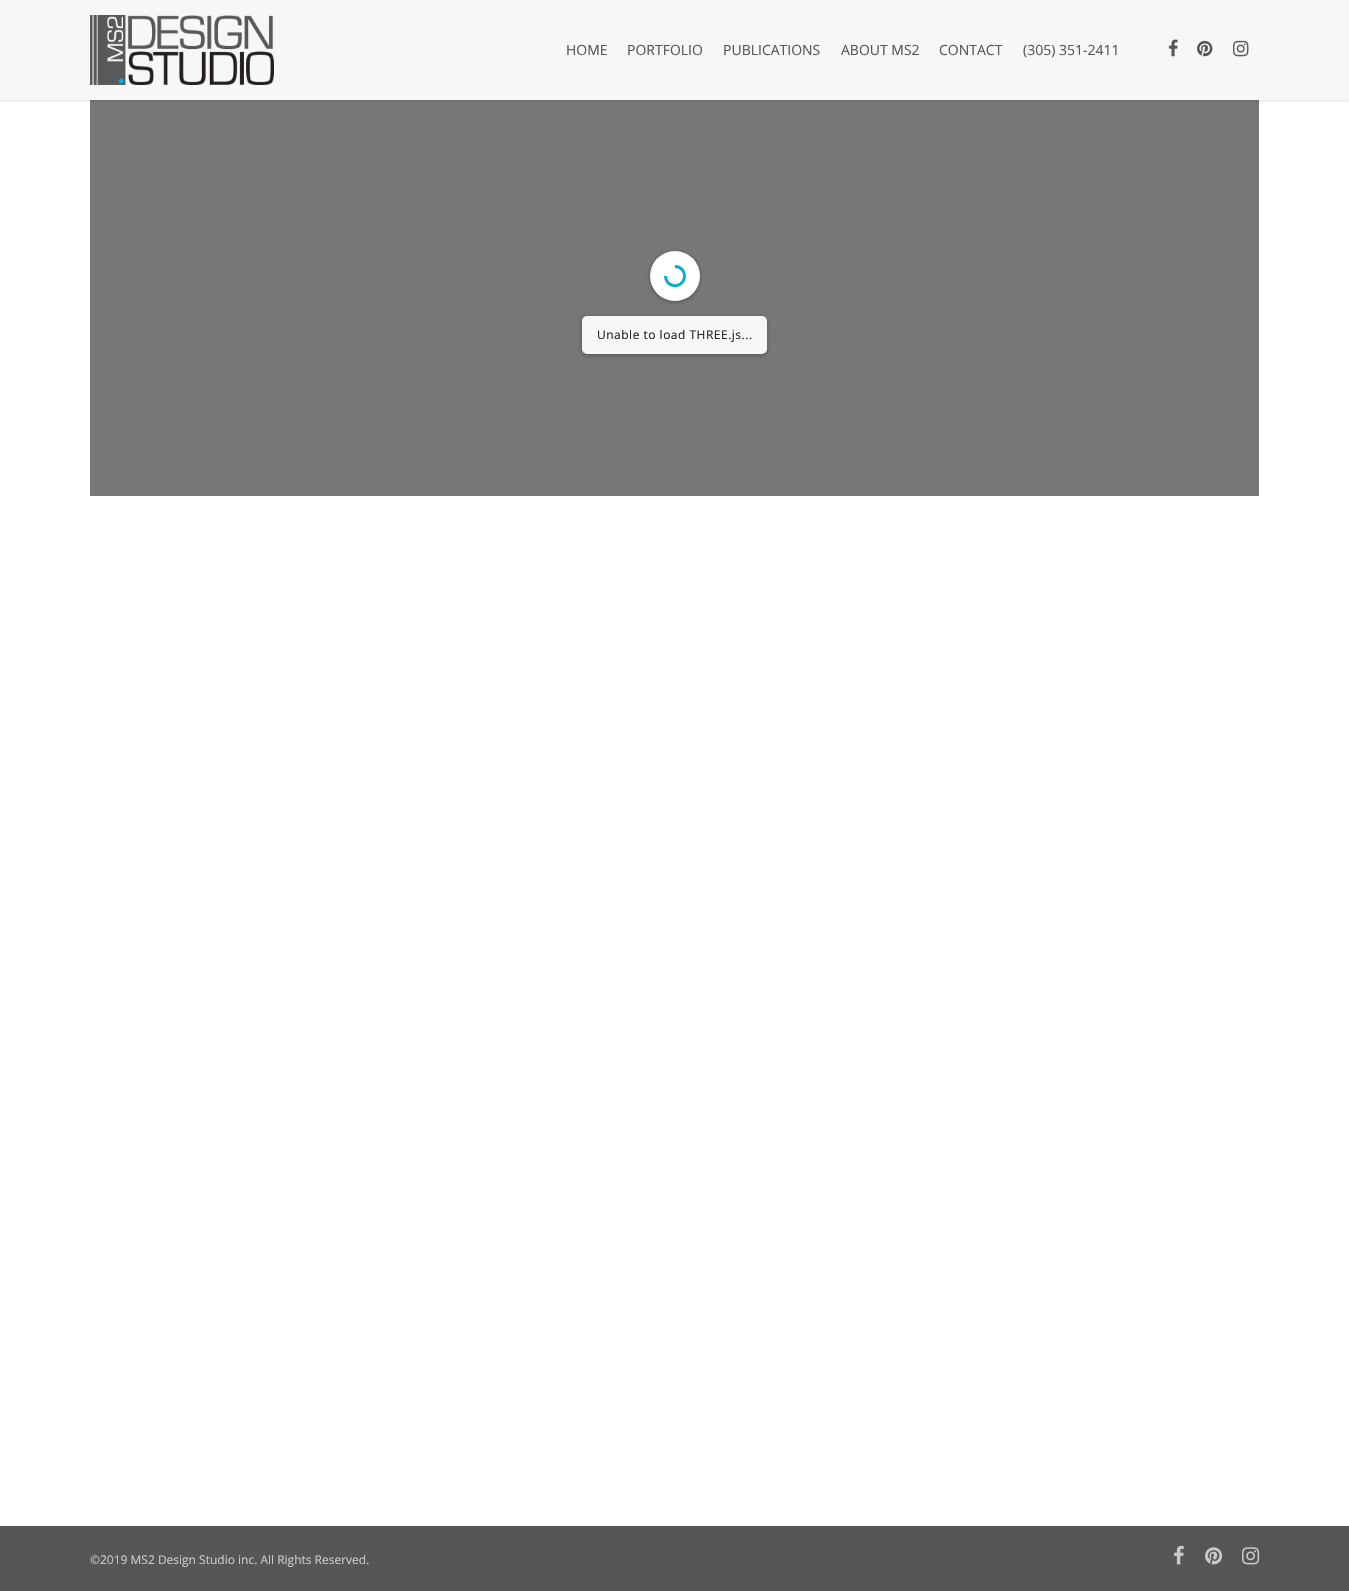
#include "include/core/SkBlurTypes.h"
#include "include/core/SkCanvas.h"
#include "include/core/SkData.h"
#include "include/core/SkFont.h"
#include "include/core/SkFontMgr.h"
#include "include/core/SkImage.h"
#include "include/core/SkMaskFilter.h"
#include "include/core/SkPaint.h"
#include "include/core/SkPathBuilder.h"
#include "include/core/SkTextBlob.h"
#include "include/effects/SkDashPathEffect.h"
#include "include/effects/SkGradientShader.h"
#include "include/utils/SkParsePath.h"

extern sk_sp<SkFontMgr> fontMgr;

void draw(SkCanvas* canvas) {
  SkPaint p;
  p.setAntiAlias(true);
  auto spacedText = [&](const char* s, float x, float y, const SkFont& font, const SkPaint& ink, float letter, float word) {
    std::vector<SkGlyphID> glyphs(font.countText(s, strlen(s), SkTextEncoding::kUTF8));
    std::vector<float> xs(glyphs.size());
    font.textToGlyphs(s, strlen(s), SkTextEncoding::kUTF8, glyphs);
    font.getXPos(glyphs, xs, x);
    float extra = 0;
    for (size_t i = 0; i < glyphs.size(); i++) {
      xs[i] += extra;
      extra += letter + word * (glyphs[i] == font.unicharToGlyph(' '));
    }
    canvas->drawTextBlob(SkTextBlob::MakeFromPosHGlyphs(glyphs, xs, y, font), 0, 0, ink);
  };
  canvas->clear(SK_ColorWHITE);
  p.setColor(SkColorSetRGB(119, 119, 119));
  canvas->drawRect(SkRect::MakeLTRB(90, 100, 1259, 496), p);
  p.setColor(SkColorSetARGB(56, 0, 0, 0));
  p.setMaskFilter(SkMaskFilter::MakeBlur(kNormal_SkBlurStyle, 1.5f));
  canvas->drawRect(SkRect::MakeLTRB(0, 0, 1349, 100), p);
  p.setMaskFilter(nullptr);
  p.setColor(SkColorSetRGB(247, 247, 247));
  canvas->drawRect(SkRect::MakeLTRB(0, 0, 1349, 100), p);
  canvas->drawImageRect(SkImages::DeferredFromEncodedData(SkData::MakeFromFileName("images/1.png")), SkRect::MakeLTRB(90, 15, 274, 85), SkSamplingOptions());
  canvas->drawImageRect(SkImages::DeferredFromEncodedData(SkData::MakeFromFileName("images/2.png")), SkRect::MakeLTRB(1168, 39, 1178, 57), SkSamplingOptions());
  canvas->drawImageRect(SkImages::DeferredFromEncodedData(SkData::MakeFromFileName("images/3.png")), SkRect::MakeLTRB(1197, 40, 1213, 57), SkSamplingOptions());
  canvas->drawImageRect(SkImages::DeferredFromEncodedData(SkData::MakeFromFileName("images/4.png")), SkRect::MakeLTRB(1233, 40, 1249, 57), SkSamplingOptions());
  p.setColor(SkColorSetARGB(77, 0, 0, 0));
  p.setMaskFilter(SkMaskFilter::MakeBlur(kNormal_SkBlurStyle, 2));
  canvas->drawRoundRect(SkRect::MakeLTRB(650, 252, 700, 302), 25, 25, p);
  p.setMaskFilter(nullptr);
  p.setColor(SK_ColorWHITE);
  canvas->drawCircle(675, 276, 25, p);
  p.setStyle(SkPaint::kStroke_Style);
  p.setStrokeWidth(2.9f);
  p.setColor(SkColorSetRGB(7, 171, 204));
  canvas->drawPath(SkPathBuilder().moveTo(675, 266.5f).cubicTo(686.5f, 266.5f, 688, 283, 677, 285.5f).cubicTo(674.5f, 286, 672, 285.5f, 669.5f, 284).cubicTo(667, 282, 665.5f, 279, 665.5f, 276).detach(), p);
  p.setStyle(SkPaint::kFill_Style);
  p.setColor(SkColorSetARGB(77, 0, 0, 0));
  p.setMaskFilter(SkMaskFilter::MakeBlur(kNormal_SkBlurStyle, 2));
  canvas->drawRoundRect(SkRect::MakeLTRB(582, 317, 767, 355), 5, 5, p);
  p.setMaskFilter(nullptr);
  p.setColor(SkColorSetRGB(247, 247, 247));
  canvas->drawRoundRect(SkRect::MakeLTRB(582, 316, 767, 354), 5, 5, p);
  p.setColor(SkColorSetRGB(86, 86, 86));
  canvas->drawRect(SkRect::MakeLTRB(0, 1526, 1349, 1591), p);
  canvas->drawImageRect(SkImages::DeferredFromEncodedData(SkData::MakeFromFileName("images/5.png")), SkRect::MakeLTRB(1174, 1545, 1184, 1565), SkSamplingOptions());
  canvas->drawImageRect(SkImages::DeferredFromEncodedData(SkData::MakeFromFileName("images/6.png")), SkRect::MakeLTRB(1205, 1547, 1223, 1565), SkSamplingOptions());
  canvas->drawImageRect(SkImages::DeferredFromEncodedData(SkData::MakeFromFileName("images/7.png")), SkRect::MakeLTRB(1242, 1547, 1260, 1565), SkSamplingOptions());
  SkFont font1(fontMgr->matchFamilyStyle("Open Sans", SkFontStyle::Normal()), 14);
  font1.setSubpixel(true);
  canvas->drawString("HOME", 566, 55, font1, p);
  canvas->drawString("PORTFOLIO", 627, 55, font1, p);
  canvas->drawString("PUBLICATIONS", 723, 55, font1, p);
  canvas->drawString("ABOUT MS2", 841, 55, font1, p);
  canvas->drawString("CONTACT", 939, 55, font1, p);
  canvas->drawString("(305) 351-2411", 1023, 55, font1, p);
  SkFont font2(fontMgr->matchFamilyStyle("Open Sans", SkFontStyle::Normal()), 12);
  font2.setSubpixel(true);
  p.setColor(SkColorSetRGB(34, 34, 34));
  spacedText("Unable to load THREE.js...", 597, 339, font2, p, 0.5f, 0);
  p.setColor(SkColorSetRGB(201, 201, 201));
  canvas->drawString("©2019 MS2 Design Studio inc. All Rights Reserved.", 90, 1564, font2, p);
}
